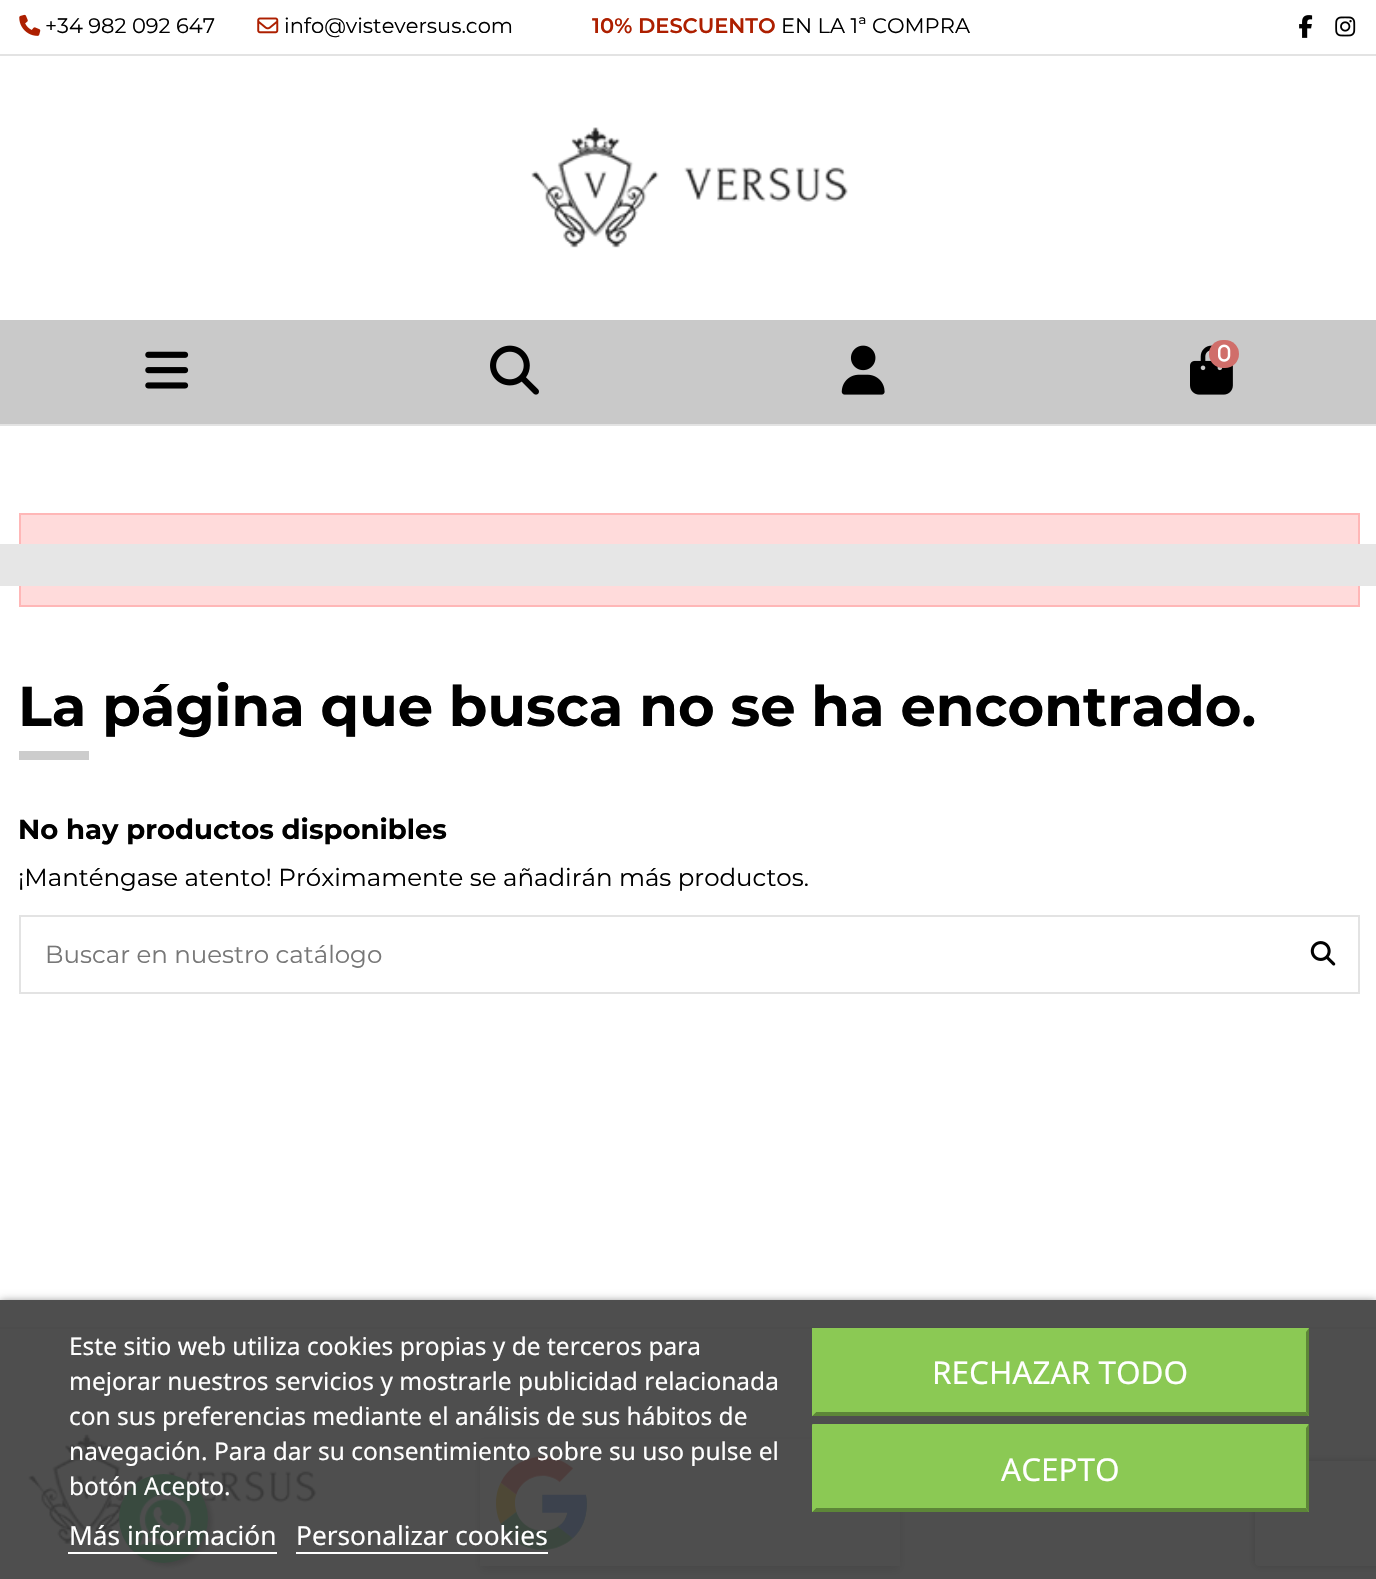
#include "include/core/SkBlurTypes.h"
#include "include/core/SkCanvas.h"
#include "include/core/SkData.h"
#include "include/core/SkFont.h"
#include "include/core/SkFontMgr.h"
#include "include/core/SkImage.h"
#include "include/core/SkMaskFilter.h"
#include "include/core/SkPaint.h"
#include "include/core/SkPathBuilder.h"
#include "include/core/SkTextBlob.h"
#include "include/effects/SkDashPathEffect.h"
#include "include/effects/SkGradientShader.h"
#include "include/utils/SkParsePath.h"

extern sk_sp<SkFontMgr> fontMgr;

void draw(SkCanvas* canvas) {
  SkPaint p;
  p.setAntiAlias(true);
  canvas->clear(SK_ColorWHITE);
  p.setColor(SkColorSetRGB(227, 227, 227));
  canvas->drawRect(SkRect::MakeLTRB(0, 54, 1376, 56), p);
  canvas->drawImageRect(SkImages::DeferredFromEncodedData(SkData::MakeFromFileName("images/1.png")), SkRect::MakeLTRB(19, 14, 41, 36), SkSamplingOptions());
  canvas->drawImageRect(SkImages::DeferredFromEncodedData(SkData::MakeFromFileName("images/2.png")), SkRect::MakeLTRB(257, 17, 279, 34), SkSamplingOptions());
  canvas->drawImageRect(SkImages::DeferredFromEncodedData(SkData::MakeFromFileName("images/3.png")), SkRect::MakeLTRB(1299, 15, 1313, 38), SkSamplingOptions());
  canvas->drawImageRect(SkImages::DeferredFromEncodedData(SkData::MakeFromFileName("images/4.png")), SkRect::MakeLTRB(1335, 16, 1356, 37), SkSamplingOptions());
  canvas->drawRect(SkRect::MakeLTRB(0, 424, 1376, 426), p);
  canvas->drawImageRect(SkImages::DeferredFromEncodedData(SkData::MakeFromFileName("images/5.png")), SkRect::MakeLTRB(531, 127, 848, 248), SkSamplingOptions());
  p.setColor(SkColorSetRGB(201, 201, 201));
  canvas->drawRect(SkRect::MakeLTRB(0, 320, 1376, 424), p);
  canvas->drawImageRect(SkImages::DeferredFromEncodedData(SkData::MakeFromFileName("images/6.png")), SkRect::MakeLTRB(145, 351, 189, 389), SkSamplingOptions());
  canvas->drawImageRect(SkImages::DeferredFromEncodedData(SkData::MakeFromFileName("images/7.png")), SkRect::MakeLTRB(490, 345, 539, 395), SkSamplingOptions());
  canvas->drawImageRect(SkImages::DeferredFromEncodedData(SkData::MakeFromFileName("images/8.png")), SkRect::MakeLTRB(841, 345, 885, 395), SkSamplingOptions());
  canvas->drawImageRect(SkImages::DeferredFromEncodedData(SkData::MakeFromFileName("images/10.png")), SkRect::MakeLTRB(1190, 345, 1233, 395), SkSamplingOptions());
  p.setColor(SkColorSetRGB(208, 110, 106));
  canvas->drawRoundRect(SkRect::MakeLTRB(1209, 340, 1239, 368), 14, 14, p);
  canvas->drawImageRect(SkImages::DeferredFromEncodedData(SkData::MakeFromFileName("images/9.png")), SkRect::MakeLTRB(1218, 344, 1231, 362), SkSamplingOptions());
  p.setColor(SkColorSetRGB(255, 219, 219));
  canvas->drawRect(SkRect::MakeLTRB(20, 514, 1359, 606), p);
  p.setStyle(SkPaint::kStroke_Style);
  p.setStrokeWidth(2);
  p.setColor(SkColorSetRGB(255, 183, 183));
  canvas->drawRect(SkRect::MakeLTRB(20, 514, 1359, 606), p);
  p.setStyle(SkPaint::kFill_Style);
  p.setColor(SkColorSetRGB(230, 230, 230));
  canvas->drawRect(SkRect::MakeLTRB(0, 544, 1376, 586), p);
  p.setColor(SkColorSetRGB(204, 204, 204));
  canvas->drawRect(SkRect::MakeLTRB(19, 751, 89, 760), p);
  p.setStyle(SkPaint::kStroke_Style);
  p.setColor(SkColorSetRGB(227, 227, 227));
  canvas->drawRect(SkRect::MakeLTRB(20, 916, 1359, 993), p);
  canvas->drawImageRect(SkImages::DeferredFromEncodedData(SkData::MakeFromFileName("images/11.png")), SkRect::MakeLTRB(1310, 941, 1336, 966), SkSamplingOptions());
  p.setStyle(SkPaint::kFill_Style);
  p.setColor(SkColorSetRGB(232, 232, 232));
  canvas->drawRect(SkRect::MakeLTRB(0, 1327, 1376, 1329), p);
  canvas->drawImageRect(SkImages::DeferredFromEncodedData(SkData::MakeFromFileName("images/12.png")), SkRect::MakeLTRB(28, 1434, 317, 1544), SkSamplingOptions());
  p.setColor(SkColorSetRGB(153, 153, 153));
  p.setMaskFilter(SkMaskFilter::MakeBlur(kNormal_SkBlurStyle, 2.5f));
  canvas->drawRoundRect(SkRect::MakeLTRB(123, 1477, 212, 1566), 44.5f, 44.5f, p);
  p.setMaskFilter(nullptr);
  p.setColor(SkColorSetRGB(37, 211, 102));
  canvas->drawCircle(163.5f, 1518.5f, 44.5f, p);
  canvas->drawImageRect(SkImages::DeferredFromEncodedData(SkData::MakeFromFileName("images/13.png")), SkRect::MakeLTRB(139, 1494, 192, 1546), SkSamplingOptions());
  p.setColor(SkColorSetARGB(66, 0, 0, 0));
  p.setMaskFilter(SkMaskFilter::MakeBlur(kNormal_SkBlurStyle, 4.5f));
  canvas->drawRect(SkRect::MakeLTRB(480, 1442, 900, 1570), p);
  p.setMaskFilter(nullptr);
  p.setColor(SK_ColorWHITE);
  canvas->drawRect(SkRect::MakeLTRB(480, 1439, 900, 1566), p);
  canvas->drawImageRect(SkImages::DeferredFromEncodedData(SkData::MakeFromFileName("images/14.png")), SkRect::MakeLTRB(496, 1456, 587, 1550), SkSamplingOptions());
  canvas->save();
  canvas->clipPath(SkPathBuilder(SkPathFillType::kEvenOdd).moveTo(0, 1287).lineTo(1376, 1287).lineTo(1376, 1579).lineTo(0, 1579).close().moveTo(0, 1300).lineTo(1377, 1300).lineTo(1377, 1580).lineTo(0, 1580).close().detach(), true);
  p.setColor(SkColorSetRGB(112, 112, 112));
  p.setMaskFilter(SkMaskFilter::MakeBlur(kNormal_SkBlurStyle, 4.5f));
  canvas->drawRect(SkRect::MakeLTRB(0, 1302, 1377, 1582), p);
  p.setMaskFilter(nullptr);
  canvas->restore();
  canvas->save();
  canvas->clipPath(SkPathBuilder(SkPathFillType::kEvenOdd).moveTo(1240, 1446).lineTo(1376, 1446).lineTo(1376, 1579).lineTo(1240, 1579).close().moveTo(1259, 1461).lineTo(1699, 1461).cubicTo(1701, 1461, 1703, 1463, 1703, 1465).lineTo(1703, 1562).cubicTo(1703, 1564, 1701, 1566, 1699, 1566).lineTo(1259, 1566).cubicTo(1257, 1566, 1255, 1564, 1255, 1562).lineTo(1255, 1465).cubicTo(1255, 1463, 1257, 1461, 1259, 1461).close().detach(), true);
  p.setColor(SkColorSetRGB(128, 128, 128));
  p.setMaskFilter(SkMaskFilter::MakeBlur(kNormal_SkBlurStyle, 4.5f));
  canvas->drawRoundRect(SkRect::MakeLTRB(1255, 1461, 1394, 1566), 4, 4, p);
  p.setMaskFilter(nullptr);
  canvas->restore();
  p.setColor(SkColorSetARGB(230, 59, 59, 59));
  canvas->drawRect(SkRect::MakeLTRB(0, 1300, 1376, 1579), p);
  p.setColor(SK_ColorWHITE);
  canvas->drawRect(SkRect::MakeLTRB(68, 1552, 277, 1554), p);
  canvas->drawRect(SkRect::MakeLTRB(296, 1552, 548, 1554), p);
  p.setColor(SkColorSetRGB(139, 201, 84));
  canvas->drawRect(SkRect::MakeLTRB(812, 1328, 1309, 1416), p);
  p.setColor(SkColorSetRGB(93, 134, 56));
  canvas->drawPath(SkPathBuilder().moveTo(1309, 1328).lineTo(1309, 1416).lineTo(1306, 1412).lineTo(1306, 1332).close().detach(), p);
  canvas->drawPath(SkPathBuilder().moveTo(1309, 1416).lineTo(812, 1416).lineTo(816, 1412).lineTo(1306, 1412).close().detach(), p);
  p.setColor(SkColorSetRGB(139, 201, 84));
  canvas->drawPath(SkPathBuilder().moveTo(812, 1416).lineTo(812, 1328).lineTo(816, 1332).lineTo(816, 1412).close().detach(), p);
  canvas->drawRect(SkRect::MakeLTRB(812, 1425, 1309, 1512), p);
  canvas->drawPath(SkPathBuilder().moveTo(812, 1424).lineTo(1309, 1424).lineTo(1306, 1428).lineTo(816, 1428).close().detach(), p);
  p.setColor(SkColorSetRGB(93, 134, 56));
  canvas->drawPath(SkPathBuilder().moveTo(1309, 1424).lineTo(1309, 1512).lineTo(1306, 1508).lineTo(1306, 1428).close().detach(), p);
  canvas->drawPath(SkPathBuilder().moveTo(1309, 1512).lineTo(812, 1512).lineTo(816, 1508).lineTo(1306, 1508).close().detach(), p);
  p.setColor(SkColorSetRGB(139, 201, 84));
  canvas->drawPath(SkPathBuilder().moveTo(812, 1512).lineTo(812, 1424).lineTo(816, 1428).lineTo(816, 1508).close().detach(), p);
  SkFont font1(fontMgr->matchFamilyStyle("Montserrat", SkFontStyle::Normal()), 21);
  font1.setSubpixel(true);
  p.setColor(SK_ColorBLACK);
  canvas->drawString("+34 982 092 647", 45, 33, font1, p);
  canvas->drawString("info@visteversus.com", 284, 33, font1, p);
  SkFont font2(fontMgr->matchFamilyStyle("Montserrat", SkFontStyle(600, SkFontStyle::kNormal_Width, SkFontStyle::kUpright_Slant)), 21);
  font2.setSubpixel(true);
  p.setColor(SkColorSetRGB(173, 31, 0));
  canvas->drawString("10% DESCUENTO", 592, 33, font2, p);
  p.setColor(SK_ColorBLACK);
  canvas->drawString("EN LA 1ª COMPRA", 781, 33, font1, p);
  SkFont font3(fontMgr->matchFamilyStyle("Montserrat", SkFontStyle::Bold()), 56);
  font3.setSubpixel(true);
  canvas->drawString("La página que busca no se ha encontrado.", 18, 726, font3, p);
  SkFont font4(fontMgr->matchFamilyStyle("Montserrat", SkFontStyle::Bold()), 27.5f);
  font4.setSubpixel(true);
  canvas->drawString("No hay productos disponibles", 18, 839, font4, p);
  SkFont font5(fontMgr->matchFamilyStyle("Montserrat", SkFontStyle::Normal()), 24.5f);
  font5.setSubpixel(true);
  canvas->drawString("¡Manténgase atento! Próximamente se añadirán más productos.", 18, 886, font5, p);
  p.setColor(SkColorSetRGB(119, 119, 119));
  canvas->drawString("Buscar en nuestro catálogo", 45, 963, font5, p);
  SkFont font6(fontMgr->matchFamilyStyle("Noto Sans", SkFontStyle::Normal()), 24.5f);
  font6.setSubpixel(true);
  p.setColor(SK_ColorWHITE);
  canvas->drawString("Este sitio web utiliza cookies propias y de terceros para", 69, 1355, font6, p);
  canvas->drawString("mejorar nuestros servicios y mostrarle publicidad relacionada", 69, 1390, font6, p);
  canvas->drawString("con sus preferencias mediante el análisis de sus hábitos de", 69, 1425, font6, p);
  canvas->drawString("navegación. Para dar su consentimiento sobre su uso pulse el", 69, 1460, font6, p);
  canvas->drawString("botón Acepto.", 69, 1495, font6, p);
  SkFont font7(fontMgr->matchFamilyStyle("Noto Sans", SkFontStyle::Normal()), 26.25f);
  font7.setSubpixel(true);
  canvas->drawString("Más información", 69, 1545, font7, p);
  canvas->drawString("Personalizar cookies", 296, 1545, font7, p);
  SkFont font8(fontMgr->matchFamilyStyle("Noto Sans", SkFontStyle::Normal()), 31.5f);
  font8.setSubpixel(true);
  canvas->drawString("RECHAZAR TODO", 932, 1384, font8, p);
  canvas->drawString("ACEPTO", 1001, 1481, font8, p);
}
